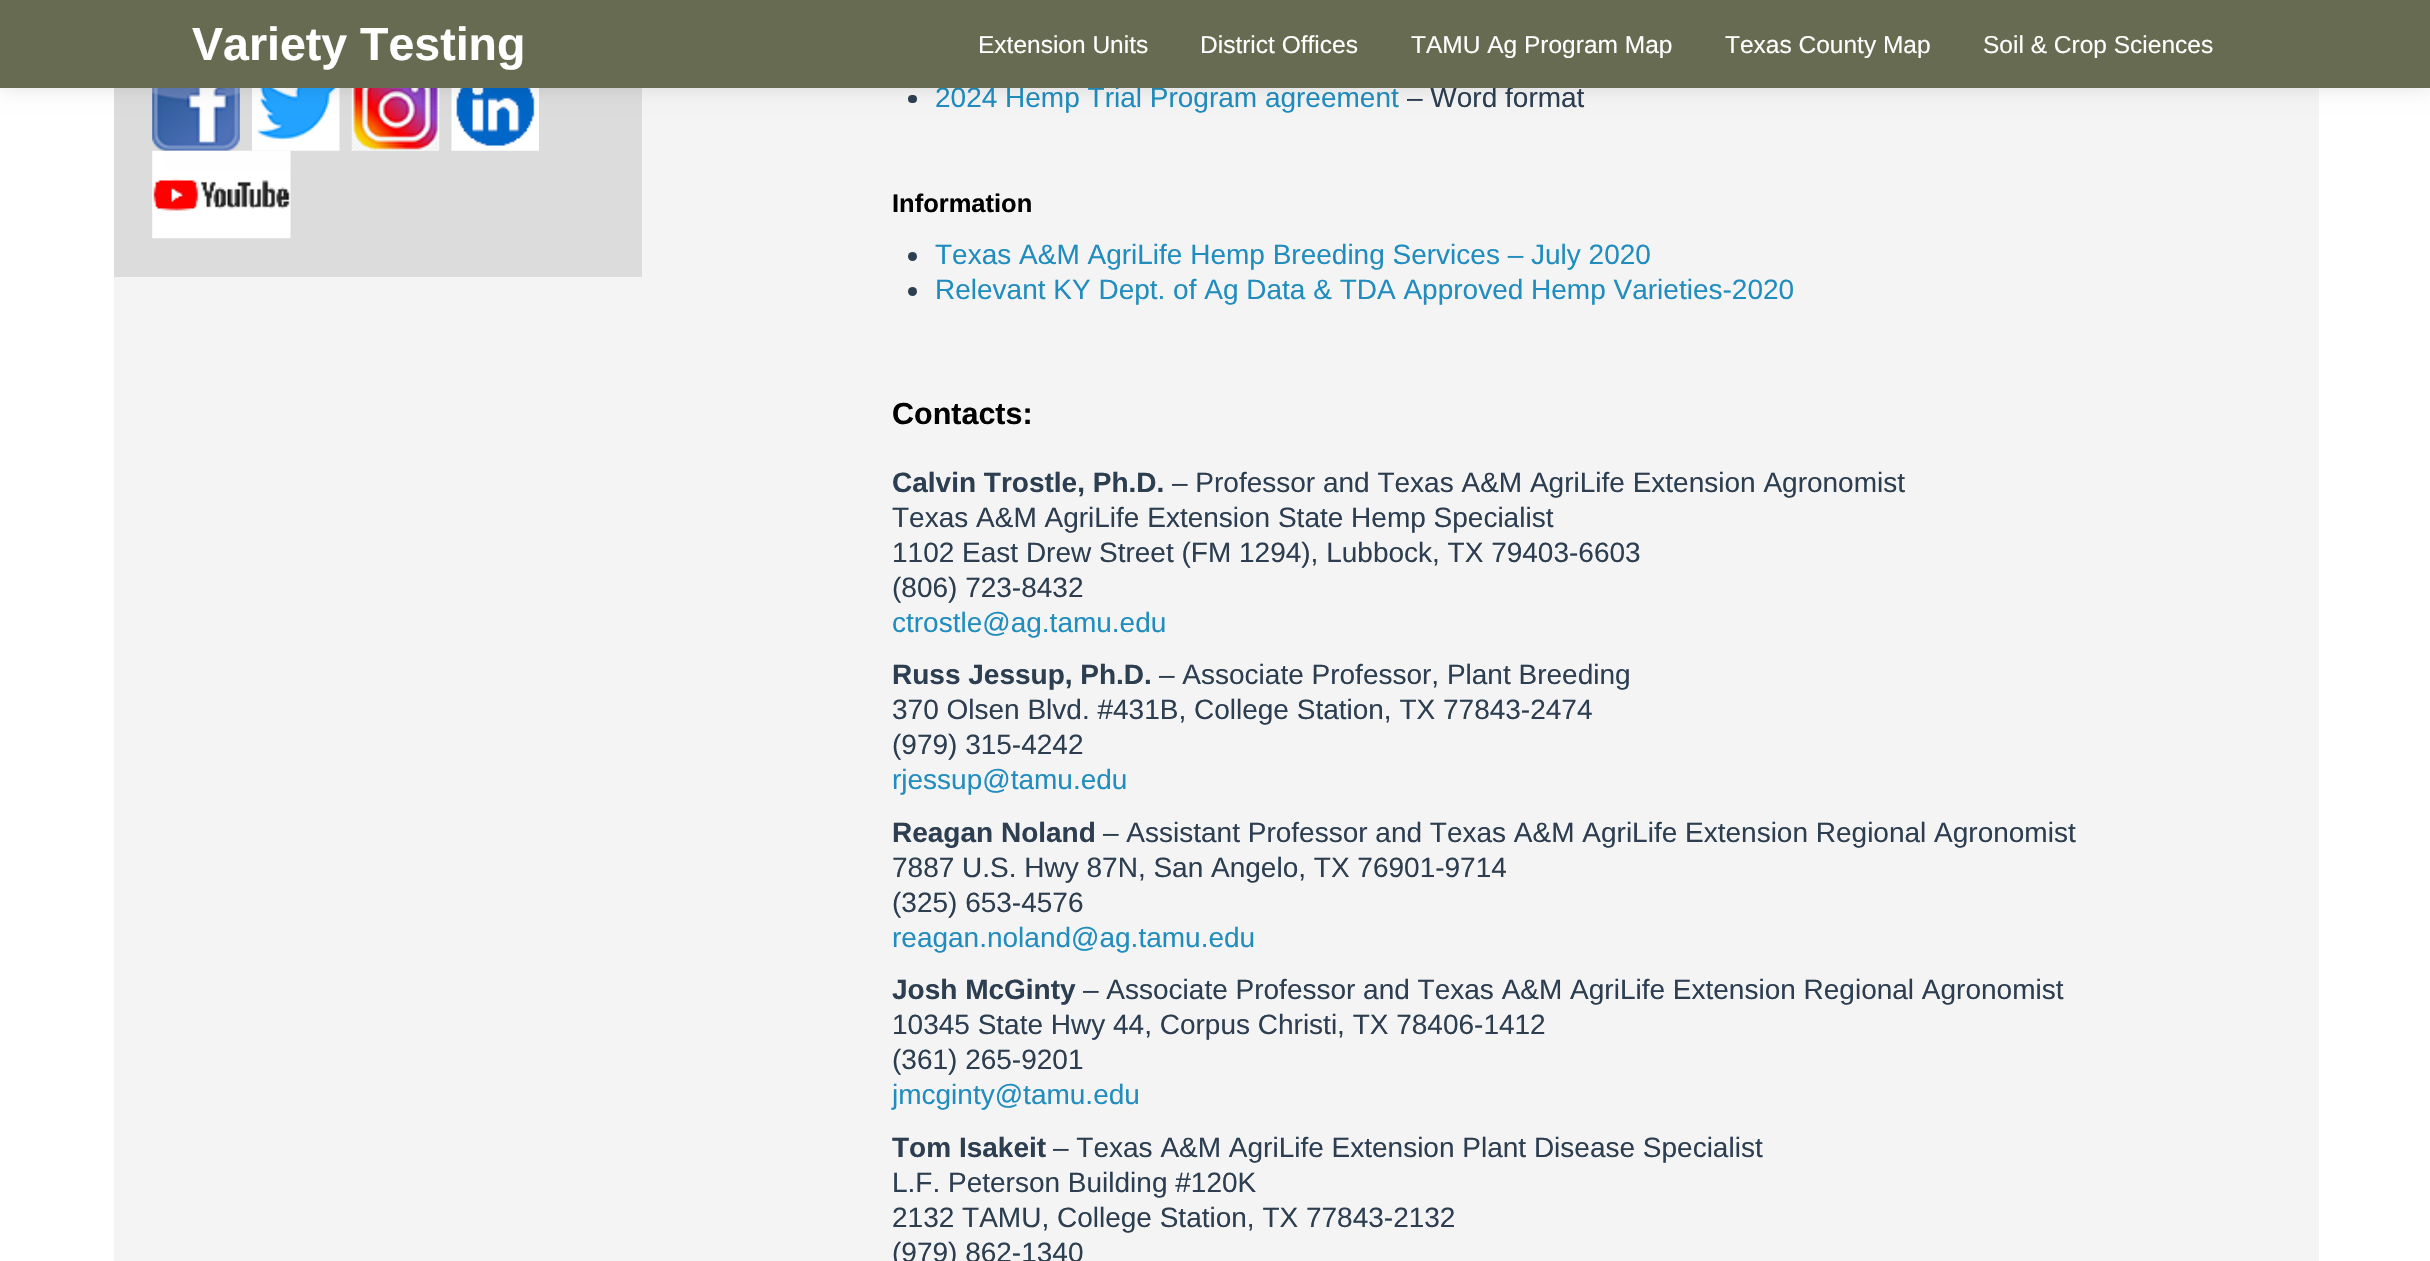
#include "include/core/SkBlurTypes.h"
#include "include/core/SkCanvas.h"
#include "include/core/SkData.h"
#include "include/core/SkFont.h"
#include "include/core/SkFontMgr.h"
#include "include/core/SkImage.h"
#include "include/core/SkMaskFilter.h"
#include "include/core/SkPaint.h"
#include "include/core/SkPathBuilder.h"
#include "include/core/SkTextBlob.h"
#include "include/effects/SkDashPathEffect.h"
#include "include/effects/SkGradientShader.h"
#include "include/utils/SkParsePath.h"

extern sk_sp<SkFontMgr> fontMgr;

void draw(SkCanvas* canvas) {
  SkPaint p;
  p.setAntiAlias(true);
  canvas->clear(SK_ColorWHITE);
  p.setColor(SkColorSetRGB(244, 244, 244));
  canvas->drawRect(SkRect::MakeLTRB(114, 88, 2319, 1261), p);
  p.setColor(SkColorSetRGB(220, 220, 220));
  canvas->drawRect(SkRect::MakeLTRB(114, 88, 642, 277), p);
  canvas->drawImageRect(SkImages::DeferredFromEncodedData(SkData::MakeFromFileName("images/1.png")), SkRect::MakeLTRB(152, 88, 240, 151), SkSamplingOptions());
  canvas->drawImageRect(SkImages::DeferredFromEncodedData(SkData::MakeFromFileName("images/2.png")), SkRect::MakeLTRB(252, 88, 340, 151), SkSamplingOptions());
  canvas->drawImageRect(SkImages::DeferredFromEncodedData(SkData::MakeFromFileName("images/3.png")), SkRect::MakeLTRB(351, 88, 440, 151), SkSamplingOptions());
  canvas->drawImageRect(SkImages::DeferredFromEncodedData(SkData::MakeFromFileName("images/4.png")), SkRect::MakeLTRB(451, 88, 539, 151), SkSamplingOptions());
  canvas->drawImageRect(SkImages::DeferredFromEncodedData(SkData::MakeFromFileName("images/5.png")), SkRect::MakeLTRB(152, 150, 291, 239), SkSamplingOptions());
  p.setColor(SkColorSetRGB(44, 62, 80));
  canvas->drawRoundRect(SkRect::MakeLTRB(908, 95, 917, 103), 4, 4, p);
  canvas->drawCircle(912.5f, 256.5f, 4.5f, p);
  canvas->drawCircle(912.5f, 291.5f, 4.5f, p);
  SkFont font1(fontMgr->matchFamilyStyle("Liberation Sans", SkFontStyle::Normal()), 28);
  font1.setSubpixel(true);
  p.setColor(SkColorSetRGB(32, 141, 190));
  canvas->drawString("2024 Hemp Trial Program agreement", 935, 107, font1, p);
  p.setColor(SkColorSetRGB(44, 62, 80));
  canvas->drawString("– Word format", 1407, 107, font1, p);
  p.setColor(SkColorSetRGB(103, 107, 81));
  canvas->drawRect(SkRect::MakeLTRB(0, 0, 2430, 88), p);
  canvas->save();
  canvas->clipPath(SkPathBuilder(SkPathFillType::kEvenOdd).moveTo(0, 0).lineTo(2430, 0).lineTo(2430, 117).lineTo(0, 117).close().moveTo(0, 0).lineTo(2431, 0).lineTo(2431, 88).lineTo(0, 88).close().detach(), true);
  p.setColor(SkColorSetARGB(26, 0, 0, 0));
  p.setMaskFilter(SkMaskFilter::MakeBlur(kNormal_SkBlurStyle, 9));
  canvas->drawRect(SkRect::MakeLTRB(0, 2, 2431, 89), p);
  p.setMaskFilter(nullptr);
  canvas->restore();
  SkFont font2(fontMgr->matchFamilyStyle("Liberation Sans", SkFontStyle::Normal()), 24.5f);
  font2.setSubpixel(true);
  p.setColor(SK_ColorWHITE);
  canvas->drawString("Soil & Crop Sciences", 1983, 53, font2, p);
  canvas->drawString("Texas County Map", 1725, 53, font2, p);
  canvas->drawString("TAMU Ag Program Map", 1411, 53, font2, p);
  canvas->drawString("District Offices", 1200, 53, font2, p);
  canvas->drawString("Extension Units", 978, 53, font2, p);
  SkFont font3(fontMgr->matchFamilyStyle("Liberation Sans", SkFontStyle::Bold()), 46.5f);
  font3.setSubpixel(true);
  canvas->drawString("Variety Testing", 192, 60, font3, p);
  SkFont font4(fontMgr->matchFamilyStyle("Liberation Sans", SkFontStyle::Bold()), 25.5f);
  font4.setSubpixel(true);
  p.setColor(SK_ColorBLACK);
  canvas->drawString("Information", 892, 212, font4, p);
  p.setColor(SkColorSetRGB(32, 141, 190));
  canvas->drawString("Texas A&M AgriLife Hemp Breeding Services – July 2020", 935, 264, font1, p);
  canvas->drawString("Relevant KY Dept. of Ag Data & TDA Approved Hemp Varieties-2020", 935, 299, font1, p);
  SkFont font5(fontMgr->matchFamilyStyle("Liberation Sans", SkFontStyle::Bold()), 30.5f);
  font5.setSubpixel(true);
  p.setColor(SK_ColorBLACK);
  canvas->drawString("Contacts:", 892, 424, font5, p);
  SkFont font6(fontMgr->matchFamilyStyle("Liberation Sans", SkFontStyle::Bold()), 28);
  font6.setSubpixel(true);
  p.setColor(SkColorSetRGB(44, 62, 80));
  canvas->drawString("Calvin Trostle, Ph.D.", 892, 492, font6, p);
  canvas->drawString("– Professor and Texas A&M AgriLife Extension Agronomist", 1172, 492, font1, p);
  canvas->drawString("Texas A&M AgriLife Extension State Hemp Specialist", 892, 527, font1, p);
  canvas->drawString("1102 East Drew Street (FM 1294), Lubbock, TX 79403-6603", 892, 562, font1, p);
  canvas->drawString("(806) 723-8432", 892, 597, font1, p);
  p.setColor(SkColorSetRGB(32, 141, 190));
  canvas->drawString("ctrostle@ag.tamu.edu", 892, 632, font1, p);
  p.setColor(SkColorSetRGB(44, 62, 80));
  canvas->drawString("Russ Jessup, Ph.D.", 892, 684, font6, p);
  canvas->drawString("– Associate Professor, Plant Breeding", 1159, 684, font1, p);
  canvas->drawString("370 Olsen Blvd. #431B, College Station, TX 77843-2474", 892, 719, font1, p);
  canvas->drawString("(979) 315-4242", 892, 754, font1, p);
  p.setColor(SkColorSetRGB(32, 141, 190));
  canvas->drawString("rjessup@tamu.edu", 892, 789, font1, p);
  p.setColor(SkColorSetRGB(44, 62, 80));
  canvas->drawString("Reagan Noland", 892, 842, font6, p);
  canvas->drawString("– Assistant Professor and Texas A&M AgriLife Extension Regional Agronomist", 1103, 842, font1, p);
  canvas->drawString("7887 U.S. Hwy 87N, San Angelo, TX 76901-9714", 892, 877, font1, p);
  canvas->drawString("(325) 653-4576", 892, 912, font1, p);
  p.setColor(SkColorSetRGB(32, 141, 190));
  canvas->drawString("reagan.noland@ag.tamu.edu", 892, 947, font1, p);
  p.setColor(SkColorSetRGB(44, 62, 80));
  canvas->drawString("Josh McGinty", 892, 999, font6, p);
  canvas->drawString("– Associate Professor and Texas A&M AgriLife Extension Regional Agronomist", 1083, 999, font1, p);
  canvas->drawString("10345 State Hwy 44, Corpus Christi, TX 78406-1412", 892, 1034, font1, p);
  canvas->drawString("(361) 265-9201", 892, 1069, font1, p);
  p.setColor(SkColorSetRGB(32, 141, 190));
  canvas->drawString("jmcginty@tamu.edu", 892, 1104, font1, p);
  p.setColor(SkColorSetRGB(44, 62, 80));
  canvas->drawString("Tom Isakeit", 892, 1157, font6, p);
  canvas->drawString("– Texas A&M AgriLife Extension Plant Disease Specialist", 1053, 1157, font1, p);
  canvas->drawString("L.F. Peterson Building #120K", 892, 1192, font1, p);
  canvas->drawString("2132 TAMU, College Station, TX 77843-2132", 892, 1227, font1, p);
  canvas->drawString("(979) 862-1340", 892, 1262, font1, p);
}
